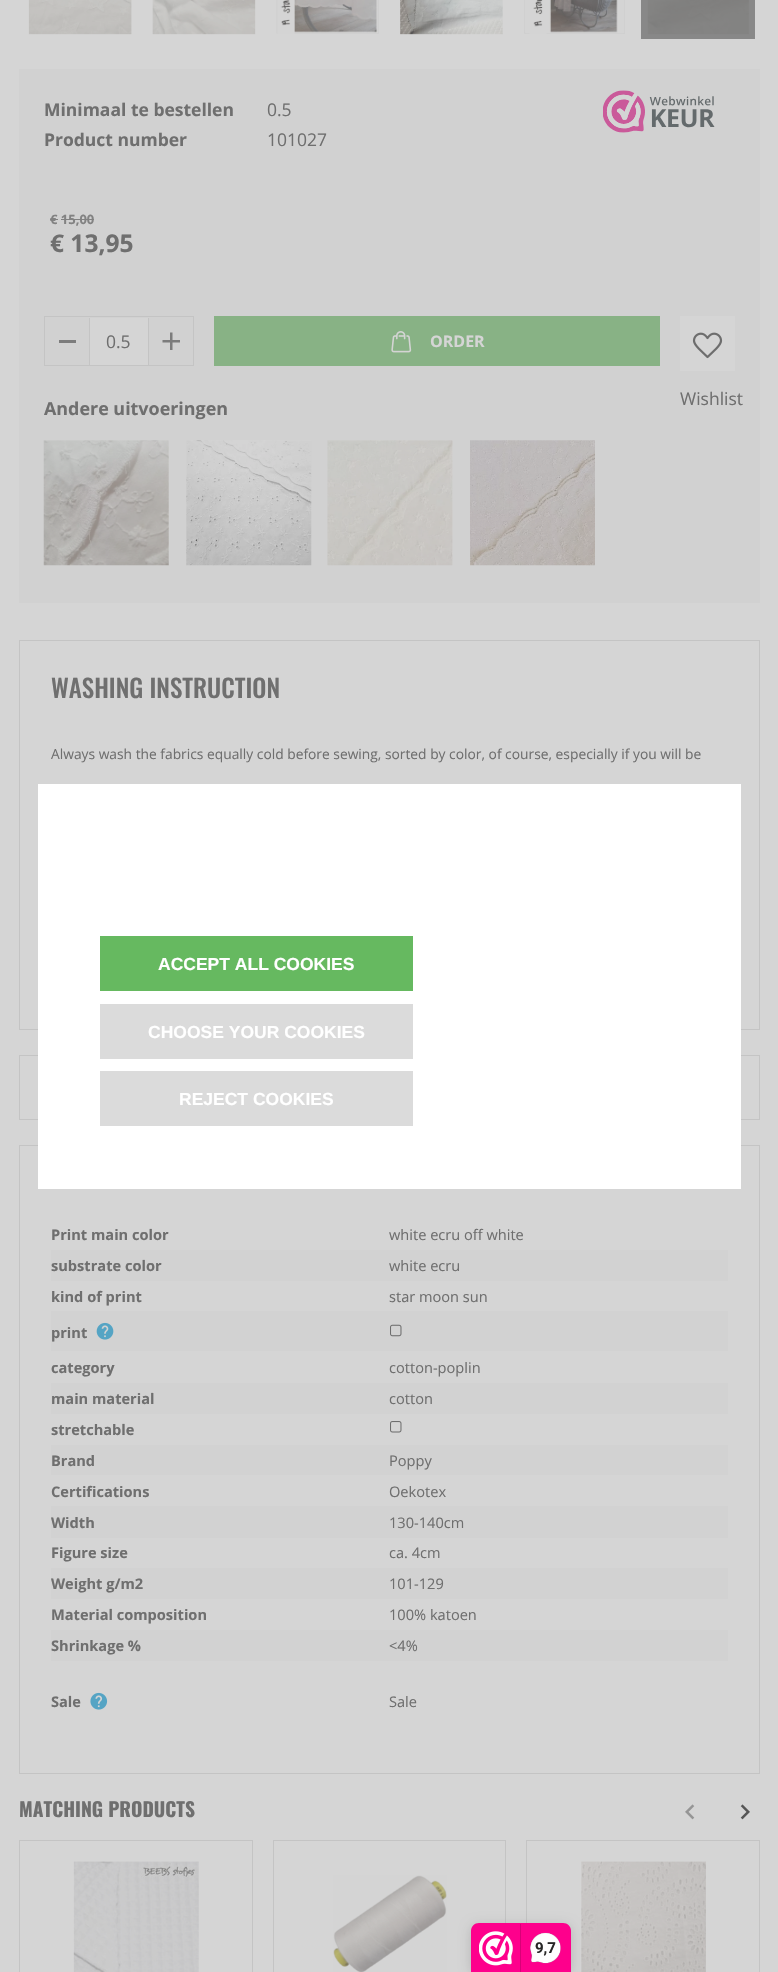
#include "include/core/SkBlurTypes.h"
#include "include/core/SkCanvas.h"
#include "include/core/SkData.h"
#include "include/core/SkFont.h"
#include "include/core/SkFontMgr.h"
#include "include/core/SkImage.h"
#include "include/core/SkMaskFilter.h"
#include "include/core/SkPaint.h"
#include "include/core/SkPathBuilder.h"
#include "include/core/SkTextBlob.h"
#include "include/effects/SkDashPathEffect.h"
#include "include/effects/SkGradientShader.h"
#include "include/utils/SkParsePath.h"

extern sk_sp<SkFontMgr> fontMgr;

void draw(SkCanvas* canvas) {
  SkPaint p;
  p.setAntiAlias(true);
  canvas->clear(SkColorSetRGB(213, 213, 213));
  p.setColor(SkColorSetRGB(136, 136, 136));
  canvas->drawRect(SkRect::MakeLTRB(641, 0, 755, 39), p);
  canvas->drawImageRect(SkImages::DeferredFromEncodedData(SkData::MakeFromFileName("images/1.png")), SkRect::MakeLTRB(28, 0, 132, 35), SkSamplingOptions());
  canvas->drawImageRect(SkImages::DeferredFromEncodedData(SkData::MakeFromFileName("images/2.png")), SkRect::MakeLTRB(152, 0, 256, 35), SkSamplingOptions());
  canvas->drawImageRect(SkImages::DeferredFromEncodedData(SkData::MakeFromFileName("images/3.png")), SkRect::MakeLTRB(276, 0, 379, 34), SkSamplingOptions());
  canvas->drawImageRect(SkImages::DeferredFromEncodedData(SkData::MakeFromFileName("images/4.png")), SkRect::MakeLTRB(400, 0, 503, 35), SkSamplingOptions());
  canvas->drawImageRect(SkImages::DeferredFromEncodedData(SkData::MakeFromFileName("images/5.png")), SkRect::MakeLTRB(524, 0, 625, 34), SkSamplingOptions());
  canvas->drawImageRect(SkImages::DeferredFromEncodedData(SkData::MakeFromFileName("images/6.png")), SkRect::MakeLTRB(647, 0, 749, 35), SkSamplingOptions());
  p.setColor(SkColorSetRGB(209, 209, 209));
  canvas->drawRect(SkRect::MakeLTRB(19, 69, 760, 603), p);
  canvas->drawImageRect(SkImages::DeferredFromEncodedData(SkData::MakeFromFileName("images/7.png")), SkRect::MakeLTRB(603, 90, 715, 133), SkSamplingOptions());
  p.setColor(SkColorSetRGB(130, 130, 130));
  canvas->drawRect(SkRect::MakeLTRB(50, 219, 58, 220), p);
  canvas->drawRect(SkRect::MakeLTRB(61, 219, 94, 220), p);
  p.setStyle(SkPaint::kStroke_Style);
  p.setStrokeWidth(1);
  p.setColor(SkColorSetRGB(196, 196, 196));
  canvas->drawRect(SkRect::MakeLTRB(44.5f, 316.5f, 193.5f, 365.5f), p);
  p.setStyle(SkPaint::kFill_Style);
  canvas->drawRect(SkRect::MakeLTRB(89, 318, 90, 365), p);
  p.setColor(SkColorSetRGB(124, 124, 124));
  canvas->drawRect(SkRect::MakeLTRB(59, 340, 76, 343), p);
  p.setColor(SkColorSetRGB(213, 213, 213));
  canvas->drawRect(SkRect::MakeLTRB(90, 318, 148, 365), p);
  p.setColor(SkColorSetRGB(196, 196, 196));
  canvas->drawRect(SkRect::MakeLTRB(148, 318, 149, 365), p);
  canvas->drawImageRect(SkImages::DeferredFromEncodedData(SkData::MakeFromFileName("images/8.png")), SkRect::MakeLTRB(162, 332, 180, 350), SkSamplingOptions());
  p.setColor(SkColorSetRGB(136, 178, 133));
  canvas->drawRect(SkRect::MakeLTRB(214, 316, 660, 366), p);
  canvas->drawImageRect(SkImages::DeferredFromEncodedData(SkData::MakeFromFileName("images/9.png")), SkRect::MakeLTRB(391, 331, 412, 353), SkSamplingOptions());
  p.setColor(SkColorSetRGB(213, 213, 213));
  canvas->drawRect(SkRect::MakeLTRB(680, 316, 735, 371), p);
  canvas->drawImageRect(SkImages::DeferredFromEncodedData(SkData::MakeFromFileName("images/10.png")), SkRect::MakeLTRB(692, 332, 723, 359), SkSamplingOptions());
  canvas->drawRect(SkRect::MakeLTRB(44, 440, 169, 565), p);
  canvas->drawImageRect(SkImages::DeferredFromEncodedData(SkData::MakeFromFileName("images/11.png")), SkRect::MakeLTRB(43, 440, 169, 566), SkSamplingOptions());
  canvas->drawRect(SkRect::MakeLTRB(186, 440, 311, 565), p);
  canvas->drawImageRect(SkImages::DeferredFromEncodedData(SkData::MakeFromFileName("images/12.png")), SkRect::MakeLTRB(186, 440, 312, 566), SkSamplingOptions());
  canvas->drawRect(SkRect::MakeLTRB(328, 440, 453, 565), p);
  canvas->drawImageRect(SkImages::DeferredFromEncodedData(SkData::MakeFromFileName("images/13.png")), SkRect::MakeLTRB(327, 440, 453, 566), SkSamplingOptions());
  canvas->drawImageRect(SkImages::DeferredFromEncodedData(SkData::MakeFromFileName("images/14.png")), SkRect::MakeLTRB(470, 440, 595, 566), SkSamplingOptions());
  p.setStyle(SkPaint::kStroke_Style);
  p.setColor(SkColorSetRGB(196, 196, 196));
  canvas->drawRect(SkRect::MakeLTRB(19.5f, 640.5f, 759.5f, 1029.5f), p);
  canvas->drawRect(SkRect::MakeLTRB(19.5f, 1055.5f, 759.5f, 1119.5f), p);
  canvas->drawRect(SkRect::MakeLTRB(19.5f, 1145.5f, 759.5f, 1773.5f), p);
  p.setStyle(SkPaint::kFill_Style);
  p.setColor(SkColorSetRGB(210, 210, 210));
  canvas->drawRect(SkRect::MakeLTRB(51, 1250, 728, 1281), p);
  canvas->drawRect(SkRect::MakeLTRB(51, 1311, 728, 1351), p);
  canvas->drawImageRect(SkImages::DeferredFromEncodedData(SkData::MakeFromFileName("images/15.png")), SkRect::MakeLTRB(96, 1322, 114, 1340), SkSamplingOptions());
  canvas->drawImageRect(SkImages::DeferredFromEncodedData(SkData::MakeFromFileName("images/16.png")), SkRect::MakeLTRB(390, 1324, 402, 1337), SkSamplingOptions());
  canvas->drawRect(SkRect::MakeLTRB(51, 1383, 728, 1414), p);
  canvas->drawImageRect(SkImages::DeferredFromEncodedData(SkData::MakeFromFileName("images/17.png")), SkRect::MakeLTRB(390, 1421, 402, 1433), SkSamplingOptions());
  canvas->drawRect(SkRect::MakeLTRB(51, 1445, 728, 1475), p);
  canvas->drawRect(SkRect::MakeLTRB(51, 1506, 728, 1538), p);
  canvas->drawRect(SkRect::MakeLTRB(51, 1568, 728, 1599), p);
  canvas->drawRect(SkRect::MakeLTRB(51, 1630, 728, 1661), p);
  canvas->drawImageRect(SkImages::DeferredFromEncodedData(SkData::MakeFromFileName("images/18.png")), SkRect::MakeLTRB(90, 1692, 108, 1710), SkSamplingOptions());
  canvas->drawImageRect(SkImages::DeferredFromEncodedData(SkData::MakeFromFileName("images/19.png")), SkRect::MakeLTRB(685, 1804, 695, 1820), SkSamplingOptions());
  canvas->drawImageRect(SkImages::DeferredFromEncodedData(SkData::MakeFromFileName("images/20.png")), SkRect::MakeLTRB(740, 1804, 750, 1820), SkSamplingOptions());
  p.setStyle(SkPaint::kStroke_Style);
  p.setColor(SkColorSetRGB(196, 196, 196));
  canvas->drawRect(SkRect::MakeLTRB(19.5f, 1840.5f, 252.5f, 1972.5f), p);
  canvas->drawImageRect(SkImages::DeferredFromEncodedData(SkData::MakeFromFileName("images/21.png")), SkRect::MakeLTRB(73, 1861, 199, 1972), SkSamplingOptions());
  canvas->drawRect(SkRect::MakeLTRB(273.5f, 1840.5f, 505.5f, 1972.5f), p);
  canvas->drawImageRect(SkImages::DeferredFromEncodedData(SkData::MakeFromFileName("images/22.png")), SkRect::MakeLTRB(333, 1875, 447, 1972), SkSamplingOptions());
  canvas->drawRect(SkRect::MakeLTRB(526.5f, 1840.5f, 759.5f, 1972.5f), p);
  canvas->drawImageRect(SkImages::DeferredFromEncodedData(SkData::MakeFromFileName("images/23.png")), SkRect::MakeLTRB(581, 1861, 706, 1972), SkSamplingOptions());
  p.setStyle(SkPaint::kFill_Style);
  p.setColor(SK_ColorWHITE);
  canvas->drawRect(SkRect::MakeLTRB(38, 784, 741, 1189), p);
  p.setColor(SkColorSetRGB(102, 185, 96));
  canvas->drawRect(SkRect::MakeLTRB(100, 936, 413, 991), p);
  p.setColor(SkColorSetRGB(219, 219, 219));
  canvas->drawRect(SkRect::MakeLTRB(100, 1004, 413, 1059), p);
  canvas->drawRect(SkRect::MakeLTRB(100, 1071, 413, 1126), p);
  p.setColor(SkColorSetARGB(38, 0, 0, 0));
  p.setMaskFilter(SkMaskFilter::MakeBlur(kNormal_SkBlurStyle, 6));
  canvas->drawRoundRect(SkRect::MakeLTRB(471, 1925, 571, 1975), 8, 8, p);
  p.setMaskFilter(nullptr);
  p.setColor(SkColorSetRGB(254, 0, 140));
  canvas->drawPath(SkPathBuilder().moveTo(479, 1923).lineTo(563, 1923).cubicTo(567.5f, 1923, 571, 1926.5f, 571, 1931).lineTo(571, 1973).lineTo(471, 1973).lineTo(471, 1931).cubicTo(471, 1926.5f, 474.5f, 1923, 479, 1923).close().detach(), p);
  canvas->drawImageRect(SkImages::DeferredFromEncodedData(SkData::MakeFromFileName("images/24.png")), SkRect::MakeLTRB(479, 1931, 513, 1966), SkSamplingOptions());
  p.setColor(SkColorSetRGB(216, 0, 119));
  canvas->drawRect(SkRect::MakeLTRB(520, 1924, 521, 1972), p);
  canvas->drawImageRect(SkImages::DeferredFromEncodedData(SkData::MakeFromFileName("images/25.png")), SkRect::MakeLTRB(530, 1932, 561, 1964), SkSamplingOptions());
  SkFont font1(fontMgr->matchFamilyStyle("Open Sans", SkFontStyle::Bold()), 17.5f);
  font1.setSubpixel(true);
  p.setColor(SkColorSetRGB(111, 111, 111));
  canvas->drawString("Minimaal te bestellen", 44, 116, font1, p);
  SkFont font2(fontMgr->matchFamilyStyle("Open Sans", SkFontStyle::Normal()), 17.5f);
  font2.setSubpixel(true);
  canvas->drawString("0.5", 267, 116, font2, p);
  canvas->drawString("Product number", 44, 146, font1, p);
  canvas->drawString("101027", 267, 146, font2, p);
  SkFont font3(fontMgr->matchFamilyStyle("Open Sans", SkFontStyle::Bold()), 13);
  font3.setSubpixel(true);
  p.setColor(SkColorSetRGB(130, 130, 130));
  canvas->drawString("€ 15,00", 50, 224, font3, p);
  SkFont font4(fontMgr->matchFamilyStyle("Open Sans", SkFontStyle::Bold()), 24.5f);
  font4.setSubpixel(true);
  p.setColor(SkColorSetRGB(111, 111, 111));
  canvas->drawString("€ 13,95", 50, 252, font4, p);
  canvas->drawString("0.5", 106, 348, font2, p);
  SkFont font5(fontMgr->matchFamilyStyle("Open Sans", SkFontStyle::Bold()), 16);
  font5.setSubpixel(true);
  p.setColor(SkColorSetRGB(213, 213, 213));
  canvas->drawString("ORDER", 430, 347, font5, p);
  p.setColor(SkColorSetRGB(111, 111, 111));
  canvas->drawString("Wishlist", 680, 405, font2, p);
  SkFont font6(fontMgr->matchFamilyStyle("Open Sans", SkFontStyle::Bold()), 17.9f);
  font6.setSubpixel(true);
  canvas->drawString("Andere uitvoeringen", 44, 415, font6, p);
  SkFont font7(fontMgr->matchFamilyStyle("Oswald", SkFontStyle(500, SkFontStyle::kNormal_Width, SkFontStyle::kUpright_Slant)), 25);
  font7.setSubpixel(true);
  canvas->drawString("WASHING INSTRUCTION", 51, 698, font7, p);
  SkFont font8(fontMgr->matchFamilyStyle("Open Sans", SkFontStyle::Normal()), 13.8f);
  font8.setSubpixel(true);
  canvas->drawString("Always wash the fabrics equally cold before sewing, sorted by color, of course, especially if you will be", 51, 759, font8, p);
  SkFont font9(fontMgr->matchFamilyStyle("Open Sans", SkFontStyle::Bold()), 14.6f);
  font9.setSubpixel(true);
  canvas->drawString("Print main color", 51, 1240, font9, p);
  SkFont font10(fontMgr->matchFamilyStyle("Open Sans", SkFontStyle::Normal()), 14.6f);
  font10.setSubpixel(true);
  canvas->drawString("white ecru off white", 389, 1240, font10, p);
  canvas->drawString("substrate color", 51, 1271, font9, p);
  canvas->drawString("white ecru", 389, 1271, font10, p);
  canvas->drawString("kind of print", 51, 1302, font9, p);
  canvas->drawString("star moon sun", 389, 1302, font10, p);
  canvas->drawString("print", 51, 1338, font9, p);
  canvas->drawString("category", 51, 1373, font9, p);
  canvas->drawString("cotton-poplin", 389, 1373, font10, p);
  canvas->drawString("main material", 51, 1404, font9, p);
  canvas->drawString("cotton", 389, 1404, font10, p);
  canvas->drawString("stretchable", 51, 1435, font9, p);
  canvas->drawString("Brand", 51, 1466, font9, p);
  canvas->drawString("Poppy", 389, 1466, font10, p);
  canvas->drawString("Certifications", 51, 1497, font9, p);
  canvas->drawString("Oekotex", 389, 1497, font10, p);
  canvas->drawString("Width", 51, 1528, font9, p);
  canvas->drawString("130-140cm", 389, 1528, font10, p);
  canvas->drawString("Figure size", 51, 1558, font9, p);
  canvas->drawString("ca. 4cm", 389, 1558, font10, p);
  canvas->drawString("Weight g/m2", 51, 1589, font9, p);
  canvas->drawString("101-129", 389, 1589, font10, p);
  canvas->drawString("Material composition", 51, 1620, font9, p);
  canvas->drawString("100% katoen", 389, 1620, font10, p);
  canvas->drawString("Shrinkage %", 51, 1651, font9, p);
  canvas->drawString("<4%", 389, 1651, font10, p);
  canvas->drawString("Sale", 51, 1707, font9, p);
  canvas->drawString("Sale", 389, 1707, font10, p);
  SkFont font11(fontMgr->matchFamilyStyle("Oswald", SkFontStyle::Bold()), 19.5f);
  font11.setSubpixel(true);
  canvas->drawString("MATCHING PRODUCTS", 19, 1817, font11, p);
  SkFont font12(fontMgr->matchFamilyStyle("Liberation Sans", SkFontStyle::Bold()), 17.5f);
  font12.setSubpixel(true);
  p.setColor(SK_ColorWHITE);
  canvas->drawString("ACCEPT ALL COOKIES", 158, 970, font12, p);
  canvas->drawString("CHOOSE YOUR COOKIES", 148, 1038, font12, p);
  canvas->drawString("REJECT COOKIES", 179, 1105, font12, p);
  SkFont font13(fontMgr->matchFamilyStyle("Roboto", SkFontStyle::Bold()), 15);
  font13.setSubpixel(true);
  p.setColor(SkColorSetRGB(39, 38, 38));
  canvas->drawString("9,7", 535, 1953, font13, p);
}
